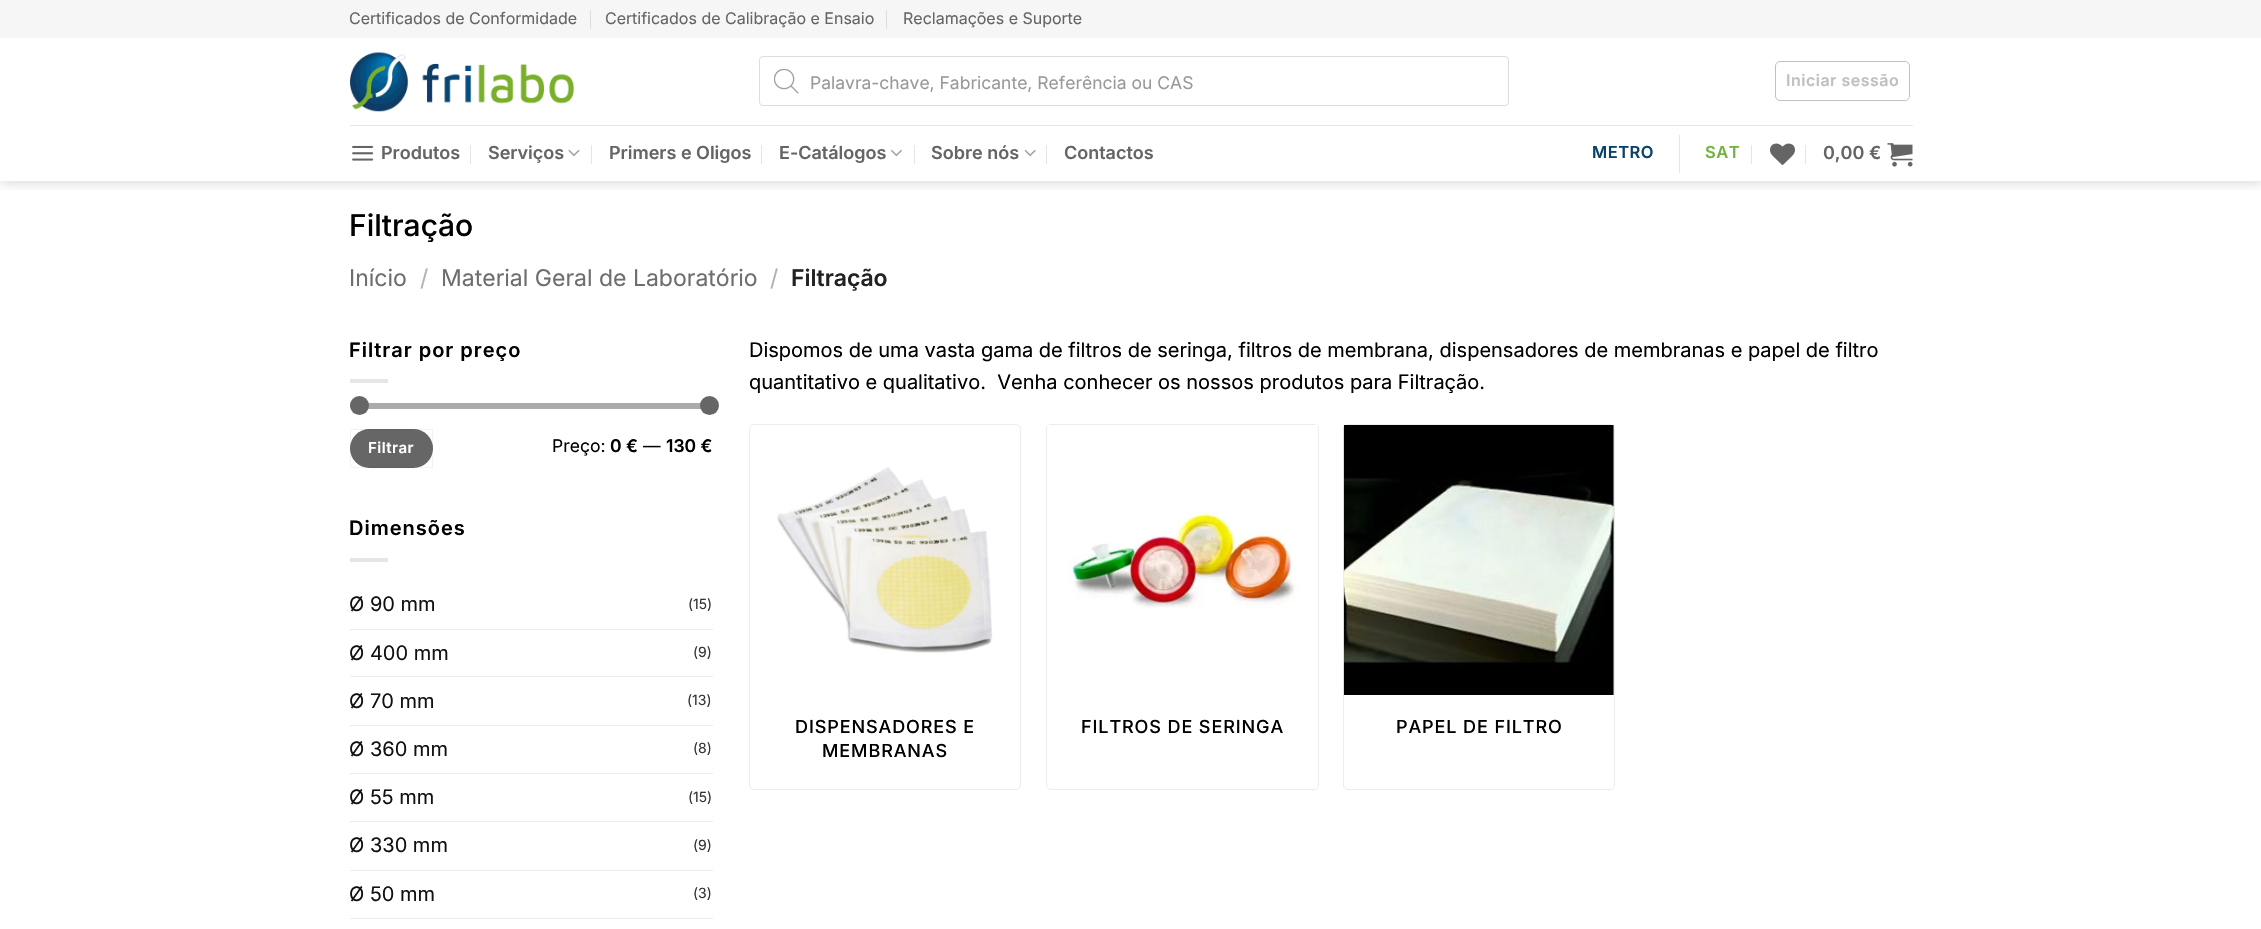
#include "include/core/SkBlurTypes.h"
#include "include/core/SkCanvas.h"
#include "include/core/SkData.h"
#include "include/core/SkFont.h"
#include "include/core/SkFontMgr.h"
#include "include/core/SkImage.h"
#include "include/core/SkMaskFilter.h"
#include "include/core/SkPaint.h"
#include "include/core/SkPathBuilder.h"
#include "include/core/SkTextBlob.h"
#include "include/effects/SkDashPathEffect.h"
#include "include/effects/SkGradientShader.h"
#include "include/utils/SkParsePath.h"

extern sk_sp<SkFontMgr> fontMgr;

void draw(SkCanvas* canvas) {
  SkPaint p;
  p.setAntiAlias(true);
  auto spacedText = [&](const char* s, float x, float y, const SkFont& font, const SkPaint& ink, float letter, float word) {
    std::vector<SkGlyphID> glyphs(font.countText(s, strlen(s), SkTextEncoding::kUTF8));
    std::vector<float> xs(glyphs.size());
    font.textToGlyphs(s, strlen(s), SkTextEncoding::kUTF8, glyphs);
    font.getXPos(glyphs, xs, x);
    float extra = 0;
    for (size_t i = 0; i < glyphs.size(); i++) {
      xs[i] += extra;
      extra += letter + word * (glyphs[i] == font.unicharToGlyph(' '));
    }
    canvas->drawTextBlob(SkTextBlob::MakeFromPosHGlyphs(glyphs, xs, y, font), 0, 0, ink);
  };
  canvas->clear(SK_ColorWHITE);
  canvas->save();
  canvas->clipRect(SkRect::MakeLTRB(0, 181, 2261, 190));
  p.setColor(SkColorSetARGB(38, 0, 0, 0));
  p.setMaskFilter(SkMaskFilter::MakeBlur(kNormal_SkBlurStyle, 6));
  canvas->drawRect(SkRect::MakeLTRB(1, 1, 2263, 183), p);
  p.setMaskFilter(nullptr);
  canvas->restore();
  p.setColor(SkColorSetRGB(246, 246, 246));
  canvas->drawRect(SkRect::MakeLTRB(0, 0, 2261, 38), p);
  p.setColor(SkColorSetRGB(221, 221, 221));
  canvas->drawRect(SkRect::MakeLTRB(590, 10, 591, 29), p);
  canvas->drawRect(SkRect::MakeLTRB(886, 10, 887, 29), p);
  canvas->drawImageRect(SkImages::DeferredFromEncodedData(SkData::MakeFromFileName("images/1.png")), SkRect::MakeLTRB(350, 52, 574, 112), SkSamplingOptions());
  p.setStyle(SkPaint::kStroke_Style);
  p.setStrokeWidth(1);
  canvas->drawRoundRect(SkRect::MakeLTRB(759.5f, 56.5f, 1508.5f, 105.5f), 3.5f, 3.5f, p);
  canvas->drawImageRect(SkImages::DeferredFromEncodedData(SkData::MakeFromFileName("images/2.png")), SkRect::MakeLTRB(774, 69, 799, 94), SkSamplingOptions());
  p.setColor(SkColorSetRGB(192, 192, 192));
  canvas->drawRoundRect(SkRect::MakeLTRB(1775.5f, 61.5f, 1909.5f, 100.5f), 4.5f, 4.5f, p);
  p.setStyle(SkPaint::kFill_Style);
  p.setColor(SkColorSetRGB(230, 230, 230));
  canvas->drawRect(SkRect::MakeLTRB(350, 125, 1913, 126), p);
  canvas->drawImageRect(SkImages::DeferredFromEncodedData(SkData::MakeFromFileName("images/3.png")), SkRect::MakeLTRB(352, 145, 374, 161), SkSamplingOptions());
  canvas->drawRect(SkRect::MakeLTRB(470, 145, 471, 164), p);
  canvas->drawImageRect(SkImages::DeferredFromEncodedData(SkData::MakeFromFileName("images/4.png")), SkRect::MakeLTRB(568, 149, 580, 157), SkSamplingOptions());
  canvas->drawRect(SkRect::MakeLTRB(591, 145, 592, 164), p);
  canvas->drawRect(SkRect::MakeLTRB(761, 145, 762, 164), p);
  canvas->drawImageRect(SkImages::DeferredFromEncodedData(SkData::MakeFromFileName("images/5.png")), SkRect::MakeLTRB(890, 149, 902, 157), SkSamplingOptions());
  canvas->drawRect(SkRect::MakeLTRB(914, 145, 915, 164), p);
  canvas->drawImageRect(SkImages::DeferredFromEncodedData(SkData::MakeFromFileName("images/6.png")), SkRect::MakeLTRB(1024, 149, 1036, 157), SkSamplingOptions());
  canvas->drawRect(SkRect::MakeLTRB(1046, 145, 1047, 164), p);
  canvas->drawRect(SkRect::MakeLTRB(1679, 135, 1680, 173), p);
  canvas->drawRect(SkRect::MakeLTRB(1751, 145, 1752, 164), p);
  canvas->drawImageRect(SkImages::DeferredFromEncodedData(SkData::MakeFromFileName("images/7.png")), SkRect::MakeLTRB(1770, 143, 1795, 165), SkSamplingOptions());
  canvas->drawRect(SkRect::MakeLTRB(1805, 145, 1806, 164), p);
  canvas->drawImageRect(SkImages::DeferredFromEncodedData(SkData::MakeFromFileName("images/8.png")), SkRect::MakeLTRB(1887, 143, 1913, 167), SkSamplingOptions());
  canvas->drawRect(SkRect::MakeLTRB(350, 379, 388, 383), p);
  p.setColor(SkColorSetRGB(241, 241, 241));
  canvas->drawRoundRect(SkRect::MakeLTRB(350, 403, 713, 409), 3, 3, p);
  p.setColor(SkColorSetARGB(128, 102, 102, 102));
  canvas->drawRoundRect(SkRect::MakeLTRB(350, 403, 713, 409), 3, 3, p);
  p.setColor(SkColorSetRGB(102, 102, 102));
  canvas->drawCircle(359.5f, 405.5f, 9.5f, p);
  canvas->drawCircle(709.5f, 405.5f, 9.5f, p);
  canvas->drawRoundRect(SkRect::MakeLTRB(350, 429, 433, 468), 19.5f, 19.5f, p);
  p.setStyle(SkPaint::kStroke_Style);
  p.setColor(SkColorSetARGB(13, 0, 0, 0));
  canvas->drawRect(SkRect::MakeLTRB(350.5f, 429.5f, 432.5f, 467.5f), p);
  p.setStyle(SkPaint::kFill_Style);
  p.setColor(SkColorSetRGB(230, 230, 230));
  canvas->drawRect(SkRect::MakeLTRB(350, 558, 388, 562), p);
  p.setColor(SkColorSetRGB(236, 236, 236));
  canvas->drawRect(SkRect::MakeLTRB(350, 629, 713, 630), p);
  canvas->drawRect(SkRect::MakeLTRB(350, 676, 713, 677), p);
  canvas->drawRect(SkRect::MakeLTRB(350, 725, 713, 726), p);
  canvas->drawRect(SkRect::MakeLTRB(350, 773, 713, 774), p);
  canvas->drawRect(SkRect::MakeLTRB(350, 821, 713, 822), p);
  canvas->drawRect(SkRect::MakeLTRB(350, 870, 713, 871), p);
  canvas->drawRect(SkRect::MakeLTRB(350, 918, 713, 919), p);
  p.setStyle(SkPaint::kStroke_Style);
  canvas->drawRoundRect(SkRect::MakeLTRB(749.5f, 424.5f, 1020.5f, 789.5f), 4.5f, 4.5f, p);
  canvas->drawImageRect(SkImages::DeferredFromEncodedData(SkData::MakeFromFileName("images/9.png")), SkRect::MakeLTRB(777, 467, 993, 653), SkSamplingOptions());
  canvas->drawRoundRect(SkRect::MakeLTRB(1046.5f, 424.5f, 1318.5f, 789.5f), 4.5f, 4.5f, p);
  canvas->drawImageRect(SkImages::DeferredFromEncodedData(SkData::MakeFromFileName("images/10.png")), SkRect::MakeLTRB(1047, 425, 1318, 609), SkSamplingOptions());
  canvas->drawRoundRect(SkRect::MakeLTRB(1343.5f, 424.5f, 1614.5f, 789.5f), 4.5f, 4.5f, p);
  canvas->drawImageRect(SkImages::DeferredFromEncodedData(SkData::MakeFromFileName("images/11.png")), SkRect::MakeLTRB(1343, 425, 1614, 695), SkSamplingOptions());
  SkFont font1(fontMgr->matchFamilyStyle("Inter", SkFontStyle::Normal()), 16);
  font1.setSubpixel(true);
  p.setStyle(SkPaint::kFill_Style);
  p.setColor(SkColorSetRGB(101, 101, 101));
  canvas->drawString("Certificados de Conformidade", 349, 24, font1, p);
  canvas->drawString("Certificados de Calibração e Ensaio", 605, 24, font1, p);
  canvas->drawString("Reclamações e Suporte", 903, 24, font1, p);
  SkFont font2(fontMgr->matchFamilyStyle("Inter", SkFontStyle::Normal()), 17.5f);
  font2.setSubpixel(true);
  p.setColor(SkColorSetRGB(153, 153, 153));
  canvas->drawString("Palavra-chave, Fabricante, Referência ou CAS", 810, 89, font2, p);
  SkFont font3(fontMgr->matchFamilyStyle("Inter", SkFontStyle(600, SkFontStyle::kNormal_Width, SkFontStyle::kUpright_Slant)), 16);
  font3.setSubpixel(true);
  p.setColor(SkColorSetRGB(192, 192, 192));
  spacedText("Iniciar sessão", 1786, 86, font3, p, 0.5f, 0);
  SkFont font4(fontMgr->matchFamilyStyle("Inter", SkFontStyle(600, SkFontStyle::kNormal_Width, SkFontStyle::kUpright_Slant)), 18);
  font4.setSubpixel(true);
  p.setColor(SkColorSetRGB(101, 101, 101));
  canvas->drawString("Produtos", 381, 159, font4, p);
  canvas->drawString("Serviços", 488, 159, font4, p);
  canvas->drawString("Primers e Oligos", 609, 159, font4, p);
  canvas->drawString("E-Catálogos", 779, 159, font4, p);
  canvas->drawString("Sobre nós", 931, 159, font4, p);
  canvas->drawString("Contactos", 1064, 159, font4, p);
  SkFont font5(fontMgr->matchFamilyStyle("Inter", SkFontStyle(600, SkFontStyle::kNormal_Width, SkFontStyle::kUpright_Slant)), 16.5f);
  font5.setSubpixel(true);
  p.setColor(SkColorSetRGB(10, 65, 106));
  spacedText("METRO", 1592, 158, font5, p, 0.5f, 0);
  p.setColor(SkColorSetRGB(118, 178, 66));
  spacedText("SAT", 1705, 158, font5, p, 0.5f, 0);
  p.setColor(SkColorSetRGB(101, 101, 101));
  canvas->drawString("0,00 €", 1823, 159, font4, p);
  SkFont font6(fontMgr->matchFamilyStyle("Inter", SkFontStyle(500, SkFontStyle::kNormal_Width, SkFontStyle::kUpright_Slant)), 30);
  font6.setSubpixel(true);
  p.setColor(SK_ColorBLACK);
  canvas->drawString("Filtração", 349, 236, font6, p);
  SkFont font7(fontMgr->matchFamilyStyle("Inter", SkFontStyle::Normal()), 23);
  font7.setSubpixel(true);
  p.setColor(SkColorSetRGB(110, 110, 110));
  canvas->drawString("Início", 349, 286, font7, p);
  p.setColor(SkColorSetRGB(178, 178, 178));
  canvas->drawString("/", 420, 286, font7, p);
  p.setColor(SkColorSetRGB(110, 110, 110));
  canvas->drawString("Material Geral de Laboratório", 441, 286, font7, p);
  p.setColor(SkColorSetRGB(178, 178, 178));
  canvas->drawString("/", 770, 286, font7, p);
  SkFont font8(fontMgr->matchFamilyStyle("Inter", SkFontStyle(600, SkFontStyle::kNormal_Width, SkFontStyle::kUpright_Slant)), 23);
  font8.setSubpixel(true);
  p.setColor(SkColorSetRGB(34, 34, 34));
  canvas->drawString("Filtração", 791, 286, font8, p);
  SkFont font9(fontMgr->matchFamilyStyle("Inter", SkFontStyle(600, SkFontStyle::kNormal_Width, SkFontStyle::kUpright_Slant)), 20);
  font9.setSubpixel(true);
  p.setColor(SK_ColorBLACK);
  spacedText("Filtrar por preço", 349, 357, font9, p, 1, 0);
  SkFont font10(fontMgr->matchFamilyStyle("Inter", SkFontStyle(600, SkFontStyle::kNormal_Width, SkFontStyle::kUpright_Slant)), 15);
  font10.setSubpixel(true);
  p.setColor(SK_ColorWHITE);
  spacedText("Filtrar", 368, 453, font10, p, 0.5f, 0);
  p.setColor(SK_ColorBLACK);
  canvas->drawString("Preço:", 552, 452, font2, p);
  SkFont font11(fontMgr->matchFamilyStyle("Inter", SkFontStyle(600, SkFontStyle::kNormal_Width, SkFontStyle::kUpright_Slant)), 17.5f);
  font11.setSubpixel(true);
  canvas->drawString("0 €", 610, 452, font11, p);
  canvas->drawString("—", 643, 452, font2, p);
  canvas->drawString("130 €", 666, 452, font11, p);
  spacedText("Dimensões", 349, 535, font9, p, 1, 0);
  SkFont font12(fontMgr->matchFamilyStyle("Inter", SkFontStyle::Normal()), 20);
  font12.setSubpixel(true);
  p.setColor(SkColorSetRGB(17, 17, 17));
  canvas->drawString("Ø 90 mm", 349, 611, font12, p);
  SkFont font13(fontMgr->matchFamilyStyle("Inter", SkFontStyle::Normal()), 14);
  font13.setSubpixel(true);
  p.setColor(SkColorSetRGB(51, 51, 51));
  canvas->drawString("(15)", 688, 609, font13, p);
  p.setColor(SkColorSetRGB(17, 17, 17));
  canvas->drawString("Ø 400 mm", 349, 660, font12, p);
  p.setColor(SkColorSetRGB(51, 51, 51));
  canvas->drawString("(9)", 693, 657, font13, p);
  p.setColor(SkColorSetRGB(17, 17, 17));
  canvas->drawString("Ø 70 mm", 349, 708, font12, p);
  p.setColor(SkColorSetRGB(51, 51, 51));
  canvas->drawString("(13)", 687, 705, font13, p);
  p.setColor(SkColorSetRGB(17, 17, 17));
  canvas->drawString("Ø 360 mm", 349, 756, font12, p);
  p.setColor(SkColorSetRGB(51, 51, 51));
  canvas->drawString("(8)", 693, 753, font13, p);
  p.setColor(SkColorSetRGB(17, 17, 17));
  canvas->drawString("Ø 55 mm", 349, 804, font12, p);
  p.setColor(SkColorSetRGB(51, 51, 51));
  canvas->drawString("(15)", 688, 802, font13, p);
  p.setColor(SkColorSetRGB(17, 17, 17));
  canvas->drawString("Ø 330 mm", 349, 852, font12, p);
  p.setColor(SkColorSetRGB(51, 51, 51));
  canvas->drawString("(9)", 693, 850, font13, p);
  p.setColor(SkColorSetRGB(17, 17, 17));
  canvas->drawString("Ø 50 mm", 349, 901, font12, p);
  p.setColor(SkColorSetRGB(51, 51, 51));
  canvas->drawString("(3)", 693, 898, font13, p);
  p.setColor(SK_ColorBLACK);
  canvas->drawString("Dispomos de uma vasta gama de filtros de seringa, filtros de membrana, dispensadores de membranas e papel de filtro", 749, 357, font12, p);
  canvas->drawString("quantitativo e qualitativo.  Venha conhecer os nossos produtos para Filtração.", 749, 389, font12, p);
  SkFont font14(fontMgr->matchFamilyStyle("Inter", SkFontStyle(500, SkFontStyle::kNormal_Width, SkFontStyle::kUpright_Slant)), 18);
  font14.setSubpixel(true);
  spacedText("DISPENSADORES E", 795, 733, font14, p, 0.9f, 0);
  spacedText("MEMBRANAS", 822, 757, font14, p, 0.9f, 0);
  spacedText("FILTROS DE SERINGA", 1081, 733, font14, p, 0.9f, 0);
  spacedText("PAPEL DE FILTRO", 1396, 733, font14, p, 0.9f, 0);
}
